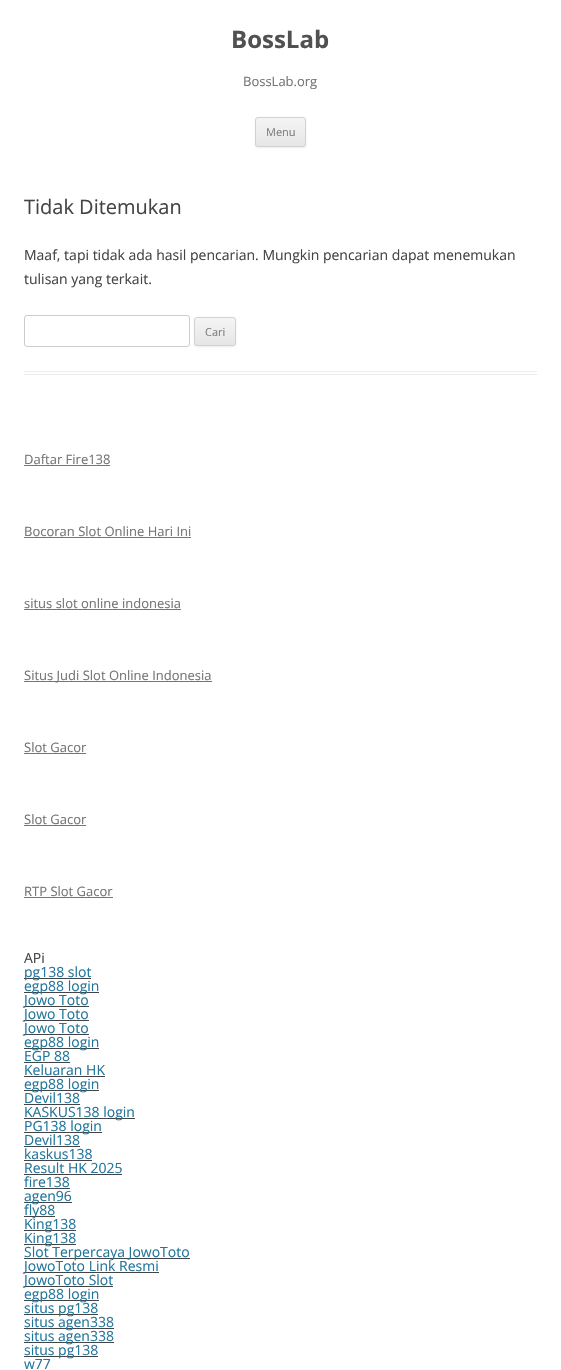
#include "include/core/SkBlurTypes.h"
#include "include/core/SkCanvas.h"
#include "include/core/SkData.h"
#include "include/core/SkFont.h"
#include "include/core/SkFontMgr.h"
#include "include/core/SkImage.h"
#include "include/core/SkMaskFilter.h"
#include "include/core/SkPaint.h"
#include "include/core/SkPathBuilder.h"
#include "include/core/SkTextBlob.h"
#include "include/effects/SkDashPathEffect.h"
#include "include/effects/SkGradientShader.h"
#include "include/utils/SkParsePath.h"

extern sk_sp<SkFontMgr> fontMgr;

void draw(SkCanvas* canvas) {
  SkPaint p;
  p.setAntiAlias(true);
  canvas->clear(SK_ColorWHITE);
  p.setColor(SkColorSetARGB(26, 64, 64, 64));
  p.setMaskFilter(SkMaskFilter::MakeBlur(kNormal_SkBlurStyle, 1));
  canvas->drawRoundRect(SkRect::MakeLTRB(255, 118, 306, 148), 3, 3, p);
  p.setMaskFilter(nullptr);
  canvas->save();
  canvas->clipPath(SkPathBuilder().moveTo(258, 117).lineTo(303, 117).cubicTo(304.5f, 117, 306, 118.5f, 306, 120).lineTo(306, 144).cubicTo(306, 145.5f, 304.5f, 147, 303, 147).lineTo(258, 147).cubicTo(256.5f, 147, 255, 145.5f, 255, 144).lineTo(255, 120).cubicTo(255, 118.5f, 256.5f, 117, 258, 117).close().detach(), true);
  {
    const SkColor colors[] = {SkColorSetRGB(244, 244, 244), SkColorSetRGB(230, 230, 230)};
    const float stops[] = {0, 1};
    const SkPoint ends[] = {{281, 118}, {281, 146}};
    p.setShader(SkGradientShader::MakeLinear(ends, colors, stops, 2, SkTileMode::kClamp));
    p.setAlpha(255);
  }
  canvas->drawRect(SkRect::MakeLTRB(255, 118, 306, 146), p);
  canvas->restore();
  p.setStyle(SkPaint::kStroke_Style);
  p.setStrokeWidth(1);
  p.setShader(nullptr);
  p.setColor(SkColorSetRGB(210, 210, 210));
  canvas->drawRoundRect(SkRect::MakeLTRB(255.5f, 117.5f, 305.5f, 146.5f), 2.5f, 2.5f, p);
  p.setStyle(SkPaint::kFill_Style);
  p.setColor(SkColorSetRGB(237, 237, 237));
  canvas->drawRect(SkRect::MakeLTRB(24, 371, 537, 372), p);
  canvas->drawRect(SkRect::MakeLTRB(24, 374, 537, 375), p);
  p.setStyle(SkPaint::kStroke_Style);
  p.setColor(SkColorSetRGB(204, 204, 204));
  canvas->drawRoundRect(SkRect::MakeLTRB(24.5f, 315.5f, 189.5f, 346.5f), 2.5f, 2.5f, p);
  p.setStyle(SkPaint::kFill_Style);
  p.setColor(SkColorSetARGB(26, 64, 64, 64));
  p.setMaskFilter(SkMaskFilter::MakeBlur(kNormal_SkBlurStyle, 1));
  canvas->drawRoundRect(SkRect::MakeLTRB(194, 318, 236, 347), 3, 3, p);
  p.setMaskFilter(nullptr);
  canvas->save();
  canvas->clipPath(SkPathBuilder().moveTo(197, 317).lineTo(233, 317).cubicTo(234.5f, 317, 236, 318.5f, 236, 320).lineTo(236, 343).cubicTo(236, 344.5f, 234.5f, 346, 233, 346).lineTo(197, 346).cubicTo(195.5f, 346, 194, 344.5f, 194, 343).lineTo(194, 320).cubicTo(194, 318.5f, 195.5f, 317, 197, 317).close().detach(), true);
  {
    const SkColor colors[] = {SkColorSetRGB(244, 244, 244), SkColorSetRGB(230, 230, 230)};
    const float stops[] = {0, 1};
    const SkPoint ends[] = {{215, 318}, {215, 345}};
    p.setShader(SkGradientShader::MakeLinear(ends, colors, stops, 2, SkTileMode::kClamp));
    p.setAlpha(255);
  }
  canvas->drawRect(SkRect::MakeLTRB(194, 318, 236, 345), p);
  canvas->restore();
  p.setStyle(SkPaint::kStroke_Style);
  p.setShader(nullptr);
  p.setColor(SkColorSetRGB(210, 210, 210));
  canvas->drawRoundRect(SkRect::MakeLTRB(194.5f, 317.5f, 235.5f, 345.5f), 2.5f, 2.5f, p);
  p.setStyle(SkPaint::kFill_Style);
  p.setColor(SkColorSetRGB(117, 117, 117));
  canvas->drawRect(SkRect::MakeLTRB(24, 465, 110, 466), p);
  canvas->drawRect(SkRect::MakeLTRB(24, 537, 191, 538), p);
  canvas->drawRect(SkRect::MakeLTRB(24, 609, 181, 610), p);
  canvas->drawRect(SkRect::MakeLTRB(24, 681, 212, 682), p);
  canvas->drawRect(SkRect::MakeLTRB(24, 753, 86, 754), p);
  canvas->drawRect(SkRect::MakeLTRB(24, 825, 86, 826), p);
  canvas->drawRect(SkRect::MakeLTRB(24, 897, 113, 898), p);
  p.setColor(SkColorSetRGB(68, 68, 68));
  canvas->drawRect(SkRect::MakeLTRB(24, 978, 91, 979), p);
  canvas->drawRect(SkRect::MakeLTRB(24, 992, 99, 993), p);
  canvas->drawRect(SkRect::MakeLTRB(24, 1006, 89, 1007), p);
  canvas->drawRect(SkRect::MakeLTRB(24, 1020, 89, 1021), p);
  canvas->drawRect(SkRect::MakeLTRB(24, 1034, 89, 1035), p);
  canvas->drawRect(SkRect::MakeLTRB(24, 1048, 99, 1049), p);
  canvas->drawRect(SkRect::MakeLTRB(24, 1062, 70, 1063), p);
  canvas->drawRect(SkRect::MakeLTRB(24, 1076, 105, 1077), p);
  canvas->drawRect(SkRect::MakeLTRB(24, 1090, 99, 1091), p);
  canvas->drawRect(SkRect::MakeLTRB(24, 1104, 80, 1105), p);
  canvas->drawRect(SkRect::MakeLTRB(24, 1118, 135, 1119), p);
  canvas->drawRect(SkRect::MakeLTRB(24, 1132, 102, 1133), p);
  canvas->drawRect(SkRect::MakeLTRB(24, 1146, 80, 1147), p);
  canvas->drawRect(SkRect::MakeLTRB(24, 1160, 92, 1161), p);
  canvas->drawRect(SkRect::MakeLTRB(24, 1174, 122, 1175), p);
  canvas->drawRect(SkRect::MakeLTRB(24, 1188, 70, 1189), p);
  canvas->drawRect(SkRect::MakeLTRB(24, 1202, 72, 1203), p);
  canvas->drawRect(SkRect::MakeLTRB(24, 1216, 55, 1217), p);
  canvas->drawRect(SkRect::MakeLTRB(24, 1230, 76, 1231), p);
  canvas->drawRect(SkRect::MakeLTRB(24, 1244, 76, 1245), p);
  canvas->drawRect(SkRect::MakeLTRB(24, 1258, 190, 1259), p);
  canvas->drawRect(SkRect::MakeLTRB(24, 1272, 159, 1273), p);
  canvas->drawRect(SkRect::MakeLTRB(24, 1286, 113, 1287), p);
  canvas->drawRect(SkRect::MakeLTRB(24, 1300, 99, 1301), p);
  canvas->drawRect(SkRect::MakeLTRB(24, 1314, 98, 1315), p);
  canvas->drawRect(SkRect::MakeLTRB(24, 1328, 114, 1329), p);
  canvas->drawRect(SkRect::MakeLTRB(24, 1342, 114, 1343), p);
  canvas->drawRect(SkRect::MakeLTRB(24, 1356, 98, 1357), p);
  SkFont font1(fontMgr->matchFamilyStyle("Open Sans", SkFontStyle::Bold()), 24);
  font1.setSubpixel(true);
  p.setColor(SkColorSetRGB(81, 81, 81));
  canvas->drawString("BossLab", 231, 48, font1, p);
  SkFont font2(fontMgr->matchFamilyStyle("Open Sans", SkFontStyle::Normal()), 13);
  font2.setSubpixel(true);
  p.setColor(SkColorSetRGB(117, 117, 117));
  canvas->drawString("BossLab.org", 243, 86, font2, p);
  SkFont font3(fontMgr->matchFamilyStyle("Open Sans", SkFontStyle::Normal()), 11);
  font3.setSubpixel(true);
  p.setColor(SkColorSetRGB(124, 124, 124));
  canvas->drawString("Menu", 266, 136, font3, p);
  SkFont font4(fontMgr->matchFamilyStyle("Open Sans", SkFontStyle::Normal()), 20);
  font4.setSubpixel(true);
  p.setColor(SkColorSetRGB(68, 68, 68));
  canvas->drawString("Tidak Ditemukan", 24, 214, font4, p);
  SkFont font5(fontMgr->matchFamilyStyle("Open Sans", SkFontStyle::Normal()), 14);
  font5.setSubpixel(true);
  canvas->drawString("Maaf, tapi tidak ada hasil pencarian. Mungkin pencarian dapat menemukan", 24, 260, font5, p);
  canvas->drawString("tulisan yang terkait.", 24, 284, font5, p);
  p.setColor(SkColorSetRGB(124, 124, 124));
  canvas->drawString("Cari", 205, 336, font3, p);
  p.setColor(SkColorSetRGB(117, 117, 117));
  canvas->drawString("Daftar Fire138", 24, 464, font2, p);
  canvas->drawString("Bocoran Slot Online Hari Ini", 24, 536, font2, p);
  canvas->drawString("situs slot online indonesia", 24, 608, font2, p);
  canvas->drawString("Situs Judi Slot Online Indonesia", 24, 680, font2, p);
  canvas->drawString("Slot Gacor", 24, 752, font2, p);
  canvas->drawString("Slot Gacor", 24, 824, font2, p);
  canvas->drawString("RTP Slot Gacor", 24, 896, font2, p);
  p.setColor(SkColorSetRGB(68, 68, 68));
  canvas->drawString("APi", 24, 963, font5, p);
  p.setColor(SkColorSetRGB(33, 117, 155));
  canvas->drawString("pg138 slot", 24, 977, font5, p);
  canvas->drawString("egp88 login", 24, 991, font5, p);
  canvas->drawString("Jowo Toto", 24, 1005, font5, p);
  canvas->drawString("Jowo Toto", 24, 1019, font5, p);
  canvas->drawString("Jowo Toto", 24, 1033, font5, p);
  canvas->drawString("egp88 login", 24, 1047, font5, p);
  canvas->drawString("EGP 88", 24, 1061, font5, p);
  canvas->drawString("Keluaran HK", 24, 1075, font5, p);
  canvas->drawString("egp88 login", 24, 1089, font5, p);
  canvas->drawString("Devil138", 24, 1103, font5, p);
  canvas->drawString("KASKUS138 login", 24, 1117, font5, p);
  canvas->drawString("PG138 login", 24, 1131, font5, p);
  canvas->drawString("Devil138", 24, 1145, font5, p);
  canvas->drawString("kaskus138", 24, 1159, font5, p);
  canvas->drawString("Result HK 2025", 24, 1173, font5, p);
  canvas->drawString("fire138", 24, 1187, font5, p);
  canvas->drawString("agen96", 24, 1201, font5, p);
  canvas->drawString("fly88", 24, 1215, font5, p);
  canvas->drawString("King138", 24, 1229, font5, p);
  canvas->drawString("King138", 24, 1243, font5, p);
  canvas->drawString("Slot Terpercaya JowoToto", 24, 1257, font5, p);
  canvas->drawString("JowoToto Link Resmi", 24, 1271, font5, p);
  canvas->drawString("JowoToto Slot", 24, 1285, font5, p);
  canvas->drawString("egp88 login", 24, 1299, font5, p);
  canvas->drawString("situs pg138", 24, 1313, font5, p);
  canvas->drawString("situs agen338", 24, 1327, font5, p);
  canvas->drawString("situs agen338", 24, 1341, font5, p);
  canvas->drawString("situs pg138", 24, 1355, font5, p);
  canvas->drawString("w77", 24, 1369, font5, p);
}
